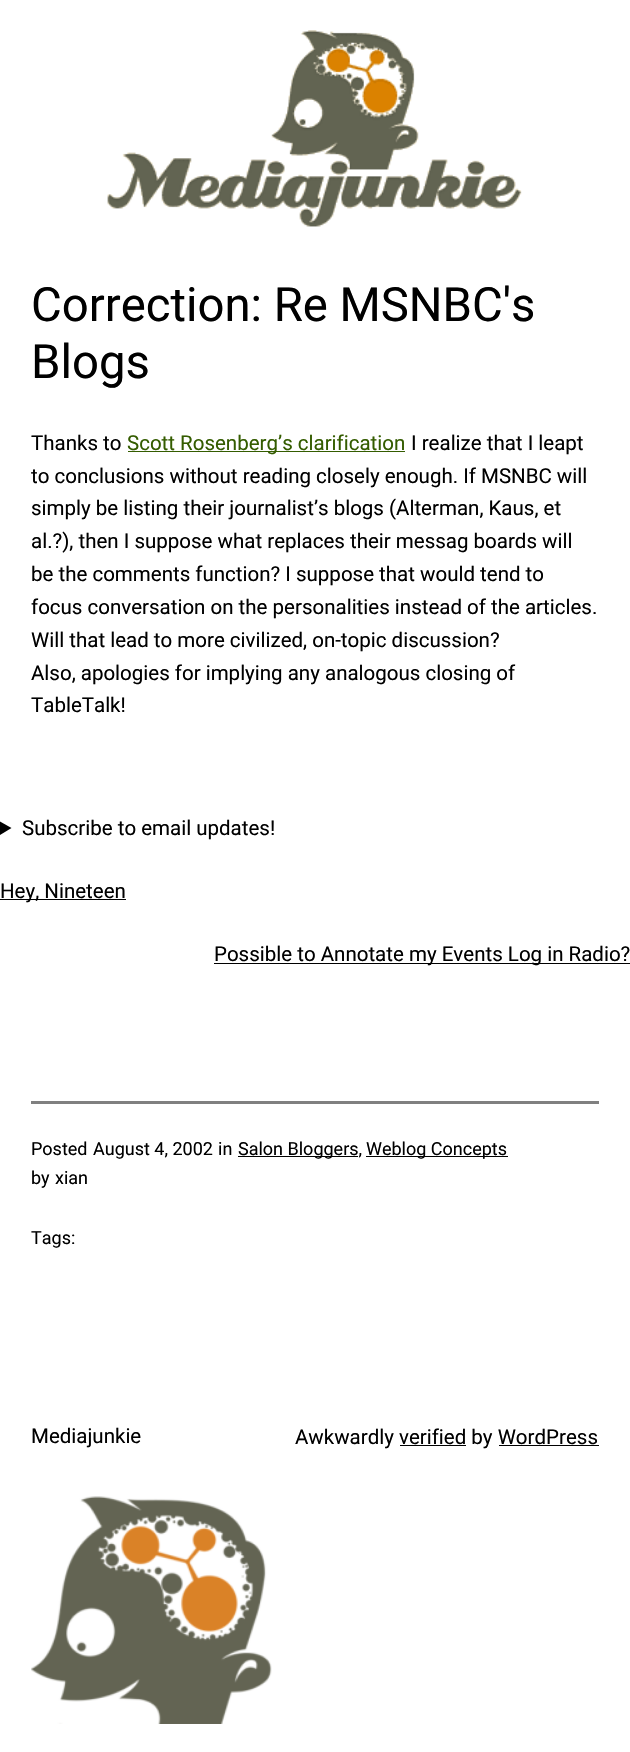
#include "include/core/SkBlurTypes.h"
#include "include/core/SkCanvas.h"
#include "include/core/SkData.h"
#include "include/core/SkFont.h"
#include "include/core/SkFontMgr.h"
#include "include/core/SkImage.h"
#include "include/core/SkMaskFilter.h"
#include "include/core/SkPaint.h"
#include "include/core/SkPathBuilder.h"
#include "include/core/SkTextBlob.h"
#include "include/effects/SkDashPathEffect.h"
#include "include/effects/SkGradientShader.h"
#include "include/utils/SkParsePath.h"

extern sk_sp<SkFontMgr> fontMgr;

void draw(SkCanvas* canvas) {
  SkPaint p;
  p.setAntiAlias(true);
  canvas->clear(SK_ColorWHITE);
  canvas->drawImageRect(SkImages::DeferredFromEncodedData(SkData::MakeFromFileName("images/1.png")), SkRect::MakeLTRB(107, 30, 522, 227), SkSamplingOptions());
  p.setColor(SkColorSetRGB(52, 92, 0));
  canvas->drawRect(SkRect::MakeLTRB(128, 451, 405, 452), p);
  p.setColor(SK_ColorBLACK);
  canvas->drawPath(SkPathBuilder().moveTo(0, 821.5f).lineTo(11.5f, 828).lineTo(0, 835).close().detach(), p);
  canvas->drawRect(SkRect::MakeLTRB(0, 899, 126, 900), p);
  canvas->drawRect(SkRect::MakeLTRB(214, 963, 630, 964), p);
  p.setColor(SkColorSetRGB(128, 128, 128));
  canvas->drawRect(SkRect::MakeLTRB(31, 1101, 599, 1104), p);
  p.setColor(SK_ColorBLACK);
  canvas->drawRect(SkRect::MakeLTRB(238, 1156, 358, 1157), p);
  canvas->drawRect(SkRect::MakeLTRB(366, 1156, 508, 1157), p);
  canvas->drawRect(SkRect::MakeLTRB(400, 1445, 466, 1446), p);
  canvas->drawRect(SkRect::MakeLTRB(499, 1445, 599, 1446), p);
  canvas->drawImageRect(SkImages::DeferredFromEncodedData(SkData::MakeFromFileName("images/2.png")), SkRect::MakeLTRB(31, 1496, 272, 1724), SkSamplingOptions());
  SkFont font1(fontMgr->matchFamilyStyle("Roboto", SkFontStyle::Normal()), 47.25f);
  font1.setSubpixel(true);
  canvas->drawString("Correction: Re MSNBC's", 31, 321, font1, p);
  canvas->drawString("Blogs", 31, 378, font1, p);
  SkFont font2(fontMgr->matchFamilyStyle("Roboto", SkFontStyle::Normal()), 20.5f);
  font2.setSubpixel(true);
  canvas->drawString("Thanks to", 31, 450, font2, p);
  p.setColor(SkColorSetRGB(52, 92, 0));
  canvas->drawString("Scott Rosenberg’s clarification", 127, 450, font2, p);
  p.setColor(SK_ColorBLACK);
  canvas->drawString("I realize that I leapt", 411, 450, font2, p);
  canvas->drawString("to conclusions without reading closely enough. If MSNBC will", 31, 483, font2, p);
  canvas->drawString("simply be listing their journalist’s blogs (Alterman, Kaus, et", 31, 515, font2, p);
  canvas->drawString("al.?), then I suppose what replaces their messag boards will", 31, 548, font2, p);
  canvas->drawString("be the comments function? I suppose that would tend to", 31, 581, font2, p);
  canvas->drawString("focus conversation on the personalities instead of the articles.", 31, 614, font2, p);
  canvas->drawString("Will that lead to more civilized, on-topic discussion?", 31, 647, font2, p);
  canvas->drawString("Also, apologies for implying any analogous closing of", 31, 680, font2, p);
  canvas->drawString("TableTalk!", 31, 712, font2, p);
  canvas->drawString("Subscribe to email updates!", 22, 835, font2, p);
  canvas->drawString("Hey, Nineteen", 0, 898, font2, p);
  canvas->drawString("Possible to Annotate my Events Log in Radio?", 214, 961, font2, p);
  SkFont font3(fontMgr->matchFamilyStyle("Roboto", SkFontStyle::Normal()), 18);
  font3.setSubpixel(true);
  canvas->drawString("Posted", 31, 1155, font3, p);
  canvas->drawString("August 4, 2002", 93, 1155, font3, p);
  canvas->drawString("in", 218, 1155, font3, p);
  canvas->drawString("Salon Bloggers,", 238, 1155, font3, p);
  canvas->drawString("Weblog Concepts", 366, 1155, font3, p);
  canvas->drawString("by", 31, 1184, font3, p);
  canvas->drawString("xian", 55, 1184, font3, p);
  canvas->drawString("Tags:", 31, 1244, font3, p);
  canvas->drawString("Mediajunkie", 31, 1443, font2, p);
  canvas->drawString("Awkwardly verified by WordPress", 295, 1444, font2, p);
}
